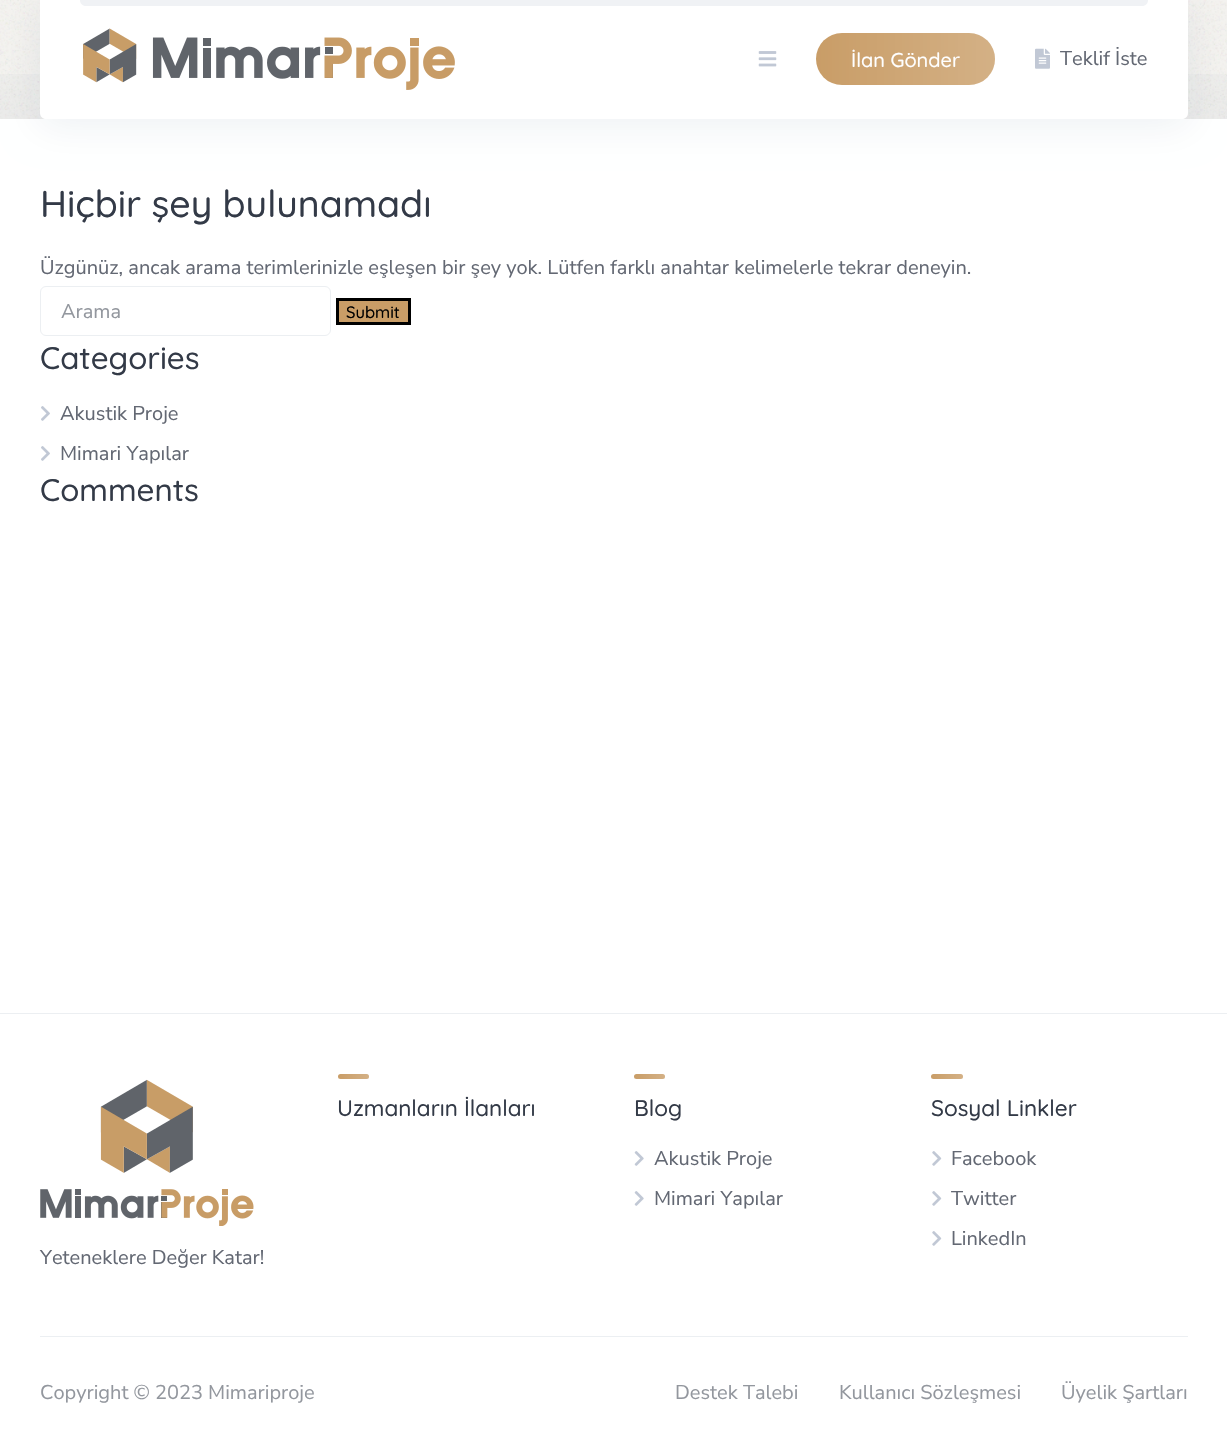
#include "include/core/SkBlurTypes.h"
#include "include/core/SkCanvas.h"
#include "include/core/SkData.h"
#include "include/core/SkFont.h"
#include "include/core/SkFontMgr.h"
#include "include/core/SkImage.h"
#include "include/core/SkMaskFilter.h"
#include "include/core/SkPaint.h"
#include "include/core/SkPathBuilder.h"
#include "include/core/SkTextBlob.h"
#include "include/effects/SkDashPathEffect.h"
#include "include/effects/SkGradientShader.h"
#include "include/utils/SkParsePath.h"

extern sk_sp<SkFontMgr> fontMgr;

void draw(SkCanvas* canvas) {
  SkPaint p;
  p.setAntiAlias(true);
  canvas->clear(SK_ColorWHITE);
  p.setColor(SkColorSetRGB(244, 242, 239));
  canvas->drawRect(SkRect::MakeLTRB(0, 0, 1227, 119), p);
  canvas->drawImageRect(SkImages::DeferredFromEncodedData(SkData::MakeFromFileName("images/1.png")), SkRect::MakeLTRB(0, 0, 1227, 119), SkSamplingOptions());
  {
    const SkColor colors[] = {SkColorSetARGB(8, 7, 36, 86), SkColorSetARGB(0, 7, 36, 86)};
    const float stops[] = {0, 1};
    const SkPoint ends[] = {{614, 119}, {614, -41}};
    p.setShader(SkGradientShader::MakeLinear(ends, colors, stops, 2, SkTileMode::kClamp));
    p.setAlpha(255);
  }
  canvas->drawRect(SkRect::MakeLTRB(0, 74, 1227, 119), p);
  p.setShader(nullptr);
  p.setColor(SkColorSetARGB(18, 7, 36, 86));
  p.setMaskFilter(SkMaskFilter::MakeBlur(kNormal_SkBlurStyle, 19));
  canvas->drawRoundRect(SkRect::MakeLTRB(40, 6, 1188, 125), 6, 6, p);
  p.setMaskFilter(nullptr);
  p.setColor(SK_ColorWHITE);
  canvas->drawPath(SkPathBuilder().moveTo(40, 0).lineTo(1188, 0).lineTo(1188, 113).cubicTo(1188, 116.5f, 1185.5f, 119, 1182, 119).lineTo(46, 119).cubicTo(42.5f, 119, 40, 116.5f, 40, 113).close().detach(), p);
  p.setColor(SkColorSetRGB(240, 242, 245));
  canvas->drawPath(SkPathBuilder().moveTo(80, 0).lineTo(1148, 0).cubicTo(1148, 3.5f, 1145.5f, 6, 1142, 6).lineTo(86, 6).cubicTo(82.5f, 6, 80, 3.5f, 80, 0).close().detach(), p);
  canvas->drawImageRect(SkImages::DeferredFromEncodedData(SkData::MakeFromFileName("images/2.png")), SkRect::MakeLTRB(83, 28, 455, 90), SkSamplingOptions());
  canvas->drawImageRect(SkImages::DeferredFromEncodedData(SkData::MakeFromFileName("images/3.png")), SkRect::MakeLTRB(758, 51, 777, 67), SkSamplingOptions());
  p.setColor(SkColorSetRGB(201, 157, 103));
  canvas->drawRoundRect(SkRect::MakeLTRB(816, 33, 995, 85), 26, 26, p);
  {
    const SkColor colors[] = {SkColorSetARGB(0, 255, 255, 255), SkColorSetARGB(51, 255, 255, 255)};
    const float stops[] = {0, 1};
    const SkPoint ends[] = {{816, 59}, {995, 59}};
    p.setShader(SkGradientShader::MakeLinear(ends, colors, stops, 2, SkTileMode::kClamp));
    p.setAlpha(255);
  }
  canvas->drawRoundRect(SkRect::MakeLTRB(816, 33, 995, 85), 26, 26, p);
  canvas->drawImageRect(SkImages::DeferredFromEncodedData(SkData::MakeFromFileName("images/4.png")), SkRect::MakeLTRB(1035, 48, 1050, 69), SkSamplingOptions());
  p.setStyle(SkPaint::kStroke_Style);
  p.setStrokeWidth(1);
  p.setShader(nullptr);
  p.setColor(SkColorSetRGB(236, 239, 242));
  canvas->drawRoundRect(SkRect::MakeLTRB(40.5f, 286.5f, 330.5f, 335.5f), 5.5f, 5.5f, p);
  p.setStyle(SkPaint::kFill_Style);
  p.setColor(SkColorSetRGB(201, 157, 103));
  canvas->drawRect(SkRect::MakeLTRB(337.5f, 299.5f, 409.5f, 323.5f), p);
  p.setStyle(SkPaint::kStroke_Style);
  p.setStrokeWidth(3);
  p.setColor(SK_ColorBLACK);
  canvas->drawRect(SkRect::MakeLTRB(337.5f, 299.5f, 409.5f, 323.5f), p);
  canvas->drawImageRect(SkImages::DeferredFromEncodedData(SkData::MakeFromFileName("images/5.png")), SkRect::MakeLTRB(41, 406, 50, 421), SkSamplingOptions());
  canvas->drawImageRect(SkImages::DeferredFromEncodedData(SkData::MakeFromFileName("images/5.png")), SkRect::MakeLTRB(41, 446, 50, 461), SkSamplingOptions());
  p.setStyle(SkPaint::kFill_Style);
  p.setColor(SkColorSetRGB(236, 239, 242));
  canvas->drawRect(SkRect::MakeLTRB(0, 1013, 1227, 1014), p);
  canvas->drawRect(SkRect::MakeLTRB(40, 1336, 1188, 1337), p);
  p.setColor(SkColorSetRGB(201, 157, 103));
  canvas->drawRoundRect(SkRect::MakeLTRB(338, 1074, 369, 1079), 2.5f, 2.5f, p);
  {
    const SkColor colors[] = {SkColorSetARGB(0, 255, 255, 255), SkColorSetARGB(51, 255, 255, 255)};
    const float stops[] = {0, 1};
    const SkPoint ends[] = {{338, 1076}, {369, 1076}};
    p.setShader(SkGradientShader::MakeLinear(ends, colors, stops, 2, SkTileMode::kClamp));
    p.setAlpha(255);
  }
  canvas->drawRoundRect(SkRect::MakeLTRB(338, 1074, 369, 1079), 2.5f, 2.5f, p);
  p.setShader(nullptr);
  p.setColor(SkColorSetRGB(201, 157, 103));
  canvas->drawRoundRect(SkRect::MakeLTRB(634, 1074, 665, 1079), 2.5f, 2.5f, p);
  {
    const SkColor colors[] = {SkColorSetARGB(0, 255, 255, 255), SkColorSetARGB(51, 255, 255, 255)};
    const float stops[] = {0, 1};
    const SkPoint ends[] = {{634, 1076}, {665, 1076}};
    p.setShader(SkGradientShader::MakeLinear(ends, colors, stops, 2, SkTileMode::kClamp));
    p.setAlpha(255);
  }
  canvas->drawRoundRect(SkRect::MakeLTRB(634, 1074, 665, 1079), 2.5f, 2.5f, p);
  canvas->drawImageRect(SkImages::DeferredFromEncodedData(SkData::MakeFromFileName("images/6.png")), SkRect::MakeLTRB(634, 1151, 644, 1166), SkSamplingOptions());
  canvas->drawImageRect(SkImages::DeferredFromEncodedData(SkData::MakeFromFileName("images/6.png")), SkRect::MakeLTRB(634, 1191, 644, 1206), SkSamplingOptions());
  p.setShader(nullptr);
  p.setColor(SkColorSetRGB(201, 157, 103));
  canvas->drawRoundRect(SkRect::MakeLTRB(931, 1074, 963, 1079), 2.5f, 2.5f, p);
  {
    const SkColor colors[] = {SkColorSetARGB(0, 255, 255, 255), SkColorSetARGB(51, 255, 255, 255)};
    const float stops[] = {0, 1};
    const SkPoint ends[] = {{931, 1076}, {963, 1076}};
    p.setShader(SkGradientShader::MakeLinear(ends, colors, stops, 2, SkTileMode::kClamp));
    p.setAlpha(255);
  }
  canvas->drawRoundRect(SkRect::MakeLTRB(931, 1074, 963, 1079), 2.5f, 2.5f, p);
  canvas->drawImageRect(SkImages::DeferredFromEncodedData(SkData::MakeFromFileName("images/7.png")), SkRect::MakeLTRB(932, 1151, 942, 1166), SkSamplingOptions());
  canvas->drawImageRect(SkImages::DeferredFromEncodedData(SkData::MakeFromFileName("images/7.png")), SkRect::MakeLTRB(932, 1191, 942, 1206), SkSamplingOptions());
  canvas->drawImageRect(SkImages::DeferredFromEncodedData(SkData::MakeFromFileName("images/7.png")), SkRect::MakeLTRB(932, 1231, 942, 1246), SkSamplingOptions());
  canvas->drawImageRect(SkImages::DeferredFromEncodedData(SkData::MakeFromFileName("images/8.png")), SkRect::MakeLTRB(40, 1079, 254, 1226), SkSamplingOptions());
  SkFont font1(fontMgr->matchFamilyStyle("Quicksand", SkFontStyle(500, SkFontStyle::kNormal_Width, SkFontStyle::kUpright_Slant)), 20);
  font1.setSubpixel(true);
  p.setShader(nullptr);
  p.setColor(SK_ColorWHITE);
  canvas->drawString("İlan Gönder", 851, 67, font1, p);
  SkFont font2(fontMgr->matchFamilyStyle("Nunito Sans", SkFontStyle::Normal()), 20);
  font2.setSubpixel(true);
  p.setColor(SkColorSetRGB(99, 104, 115));
  canvas->drawString("Teklif İste", 1060, 65, font2, p);
  SkFont font3(fontMgr->matchFamilyStyle("Quicksand", SkFontStyle(500, SkFontStyle::kNormal_Width, SkFontStyle::kUpright_Slant)), 37.5f);
  font3.setSubpixel(true);
  p.setColor(SkColorSetRGB(51, 58, 71));
  canvas->drawString("Hiçbir şey bulunamadı", 40, 217, font3, p);
  p.setColor(SkColorSetRGB(99, 104, 115));
  canvas->drawString("Üzgünüz, ancak arama terimlerinizle eşleşen bir şey yok. Lütfen farklı anahtar kelimelerle tekrar deneyin.", 40, 274, font2, p);
  p.setColor(SkColorSetRGB(147, 151, 158));
  canvas->drawString("Arama", 61, 318, font2, p);
  SkFont font4(fontMgr->matchFamilyStyle("Quicksand", SkFontStyle(500, SkFontStyle::kNormal_Width, SkFontStyle::kUpright_Slant)), 16.5f);
  font4.setSubpixel(true);
  p.setColor(SK_ColorBLACK);
  canvas->drawString("Submit", 346, 318, font4, p);
  SkFont font5(fontMgr->matchFamilyStyle("Quicksand", SkFontStyle(500, SkFontStyle::kNormal_Width, SkFontStyle::kUpright_Slant)), 31.25f);
  font5.setSubpixel(true);
  p.setColor(SkColorSetRGB(51, 58, 71));
  canvas->drawString("Categories", 40, 369, font5, p);
  p.setColor(SkColorSetRGB(99, 104, 115));
  canvas->drawString("Akustik Proje", 60, 420, font2, p);
  canvas->drawString("Mimari Yapılar", 60, 460, font2, p);
  p.setColor(SkColorSetRGB(51, 58, 71));
  canvas->drawString("Comments", 40, 501, font5, p);
  SkFont font6(fontMgr->matchFamilyStyle("Quicksand", SkFontStyle(500, SkFontStyle::kNormal_Width, SkFontStyle::kUpright_Slant)), 22.5f);
  font6.setSubpixel(true);
  canvas->drawString("Uzmanların İlanları", 337, 1116, font6, p);
  canvas->drawString("Blog", 634, 1116, font6, p);
  p.setColor(SkColorSetRGB(99, 104, 115));
  canvas->drawString("Akustik Proje", 654, 1165, font2, p);
  canvas->drawString("Mimari Yapılar", 654, 1205, font2, p);
  p.setColor(SkColorSetRGB(51, 58, 71));
  canvas->drawString("Sosyal Linkler", 931, 1116, font6, p);
  p.setColor(SkColorSetRGB(99, 104, 115));
  canvas->drawString("Facebook", 951, 1165, font2, p);
  canvas->drawString("Twitter", 951, 1205, font2, p);
  canvas->drawString("LinkedIn", 951, 1245, font2, p);
  canvas->drawString("Yeteneklere Değer Katar!", 40, 1264, font2, p);
  p.setColor(SkColorSetRGB(147, 151, 158));
  canvas->drawString("Copyright © 2023 Mimariproje", 40, 1399, font2, p);
  canvas->drawString("Destek Talebi", 675, 1399, font2, p);
  canvas->drawString("Kullanıcı Sözleşmesi", 839, 1399, font2, p);
  canvas->drawString("Üyelik Şartları", 1061, 1399, font2, p);
}
